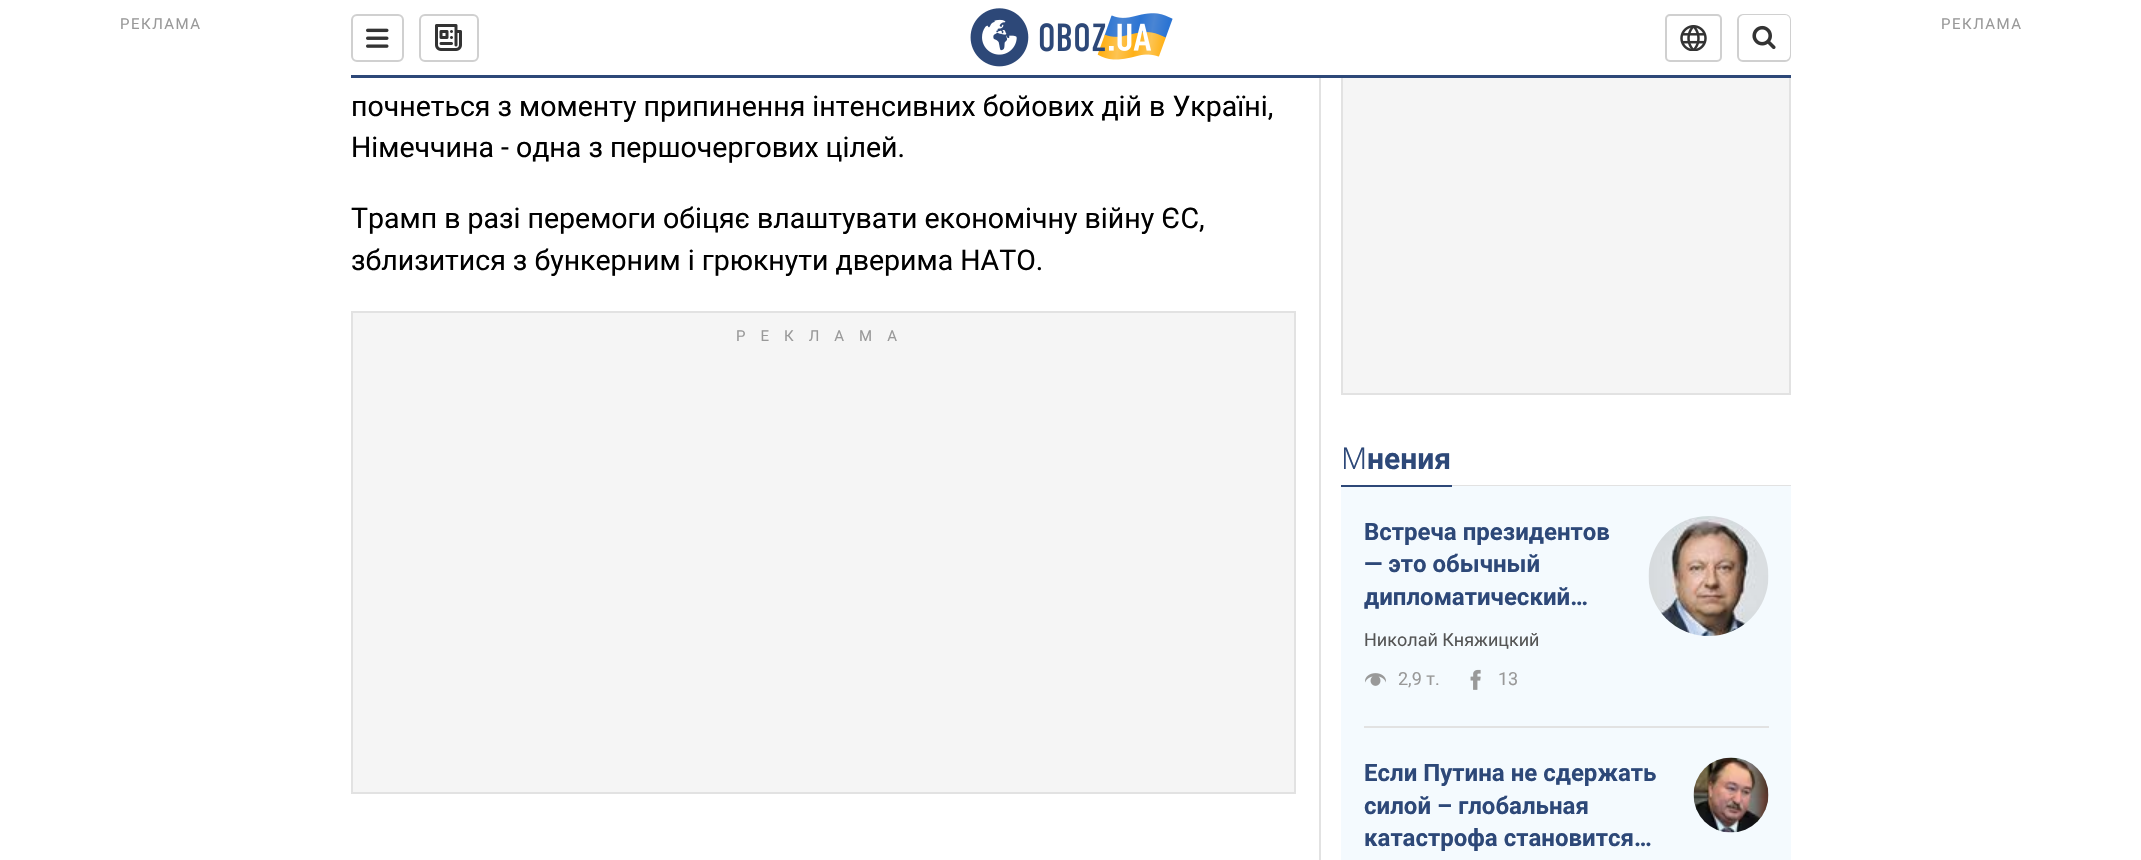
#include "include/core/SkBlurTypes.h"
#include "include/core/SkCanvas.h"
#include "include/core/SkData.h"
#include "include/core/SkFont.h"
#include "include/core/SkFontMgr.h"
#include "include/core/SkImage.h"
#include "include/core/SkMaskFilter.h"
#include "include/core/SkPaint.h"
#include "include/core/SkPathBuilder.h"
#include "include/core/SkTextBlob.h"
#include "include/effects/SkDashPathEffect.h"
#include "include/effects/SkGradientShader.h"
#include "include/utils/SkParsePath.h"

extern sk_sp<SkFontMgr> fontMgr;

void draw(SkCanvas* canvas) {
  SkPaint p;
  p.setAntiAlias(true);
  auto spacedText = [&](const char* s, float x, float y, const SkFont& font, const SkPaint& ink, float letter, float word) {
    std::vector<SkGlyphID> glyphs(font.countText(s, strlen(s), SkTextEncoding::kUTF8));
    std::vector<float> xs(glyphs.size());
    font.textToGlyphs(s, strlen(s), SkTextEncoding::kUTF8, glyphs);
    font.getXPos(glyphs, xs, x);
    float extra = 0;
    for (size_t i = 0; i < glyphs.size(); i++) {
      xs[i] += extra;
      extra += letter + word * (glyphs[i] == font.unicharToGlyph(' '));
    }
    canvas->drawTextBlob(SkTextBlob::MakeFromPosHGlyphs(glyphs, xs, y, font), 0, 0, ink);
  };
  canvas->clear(SK_ColorWHITE);
  p.setColor(SkColorSetRGB(245, 245, 245));
  canvas->drawRect(SkRect::MakeLTRB(1343, 78, 1789, 393), p);
  p.setStyle(SkPaint::kStroke_Style);
  p.setStrokeWidth(2);
  p.setColor(SkColorSetRGB(226, 226, 226));
  canvas->drawRect(SkRect::MakeLTRB(1342, -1, 1790, 394), p);
  p.setStyle(SkPaint::kFill_Style);
  p.setColor(SK_ColorWHITE);
  canvas->drawRect(SkRect::MakeLTRB(1341, 0, 1791, 78), p);
  p.setColor(SkColorSetRGB(45, 72, 120));
  canvas->drawRect(SkRect::MakeLTRB(351, 75, 1791, 78), p);
  p.setStyle(SkPaint::kStroke_Style);
  p.setColor(SkColorSetRGB(208, 208, 208));
  canvas->drawRoundRect(SkRect::MakeLTRB(352, 15, 403, 61), 5, 5, p);
  canvas->drawImageRect(SkImages::DeferredFromEncodedData(SkData::MakeFromFileName("images/1.png")), SkRect::MakeLTRB(366, 28, 389, 48), SkSamplingOptions());
  canvas->drawRoundRect(SkRect::MakeLTRB(420, 15, 478, 61), 5, 5, p);
  canvas->drawImageRect(SkImages::DeferredFromEncodedData(SkData::MakeFromFileName("images/2.png")), SkRect::MakeLTRB(435, 24, 462, 51), SkSamplingOptions());
  canvas->drawImageRect(SkImages::DeferredFromEncodedData(SkData::MakeFromFileName("images/3.png")), SkRect::MakeLTRB(970, 8, 1173, 67), SkSamplingOptions());
  canvas->drawRoundRect(SkRect::MakeLTRB(1666, 15, 1721, 61), 4, 4, p);
  canvas->drawImageRect(SkImages::DeferredFromEncodedData(SkData::MakeFromFileName("images/4.png")), SkRect::MakeLTRB(1680, 25, 1707, 51), SkSamplingOptions());
  canvas->drawRoundRect(SkRect::MakeLTRB(1738, 15, 1790, 61), 5, 5, p);
  p.setStyle(SkPaint::kFill_Style);
  p.setColor(SK_ColorWHITE);
  canvas->drawRoundRect(SkRect::MakeLTRB(1739, 15, 1790, 60), 5, 5, p);
  canvas->drawImageRect(SkImages::DeferredFromEncodedData(SkData::MakeFromFileName("images/5.png")), SkRect::MakeLTRB(1752, 25, 1776, 50), SkSamplingOptions());
  p.setColor(SkColorSetRGB(245, 245, 245));
  canvas->drawRect(SkRect::MakeLTRB(352, 312, 1295, 793), p);
  p.setStyle(SkPaint::kStroke_Style);
  p.setColor(SkColorSetRGB(226, 226, 226));
  canvas->drawRect(SkRect::MakeLTRB(352, 312, 1295, 793), p);
  p.setStyle(SkPaint::kFill_Style);
  canvas->drawRect(SkRect::MakeLTRB(1319, 78, 1321, 860), p);
  canvas->drawRect(SkRect::MakeLTRB(1452, 485, 1791, 486), p);
  p.setColor(SkColorSetRGB(244, 250, 254));
  canvas->drawRect(SkRect::MakeLTRB(1341, 486, 1791, 860), p);
  p.setColor(SkColorSetRGB(45, 72, 120));
  canvas->drawRect(SkRect::MakeLTRB(1341, 485, 1452, 487), p);
  p.setColor(SkColorSetRGB(226, 226, 226));
  canvas->drawRect(SkRect::MakeLTRB(1364, 726, 1769, 728), p);
  canvas->drawImageRect(SkImages::DeferredFromEncodedData(SkData::MakeFromFileName("images/6.png")), SkRect::MakeLTRB(1365, 673, 1386, 686), SkSamplingOptions());
  canvas->drawImageRect(SkImages::DeferredFromEncodedData(SkData::MakeFromFileName("images/7.png")), SkRect::MakeLTRB(1470, 669, 1481, 690), SkSamplingOptions());
  canvas->drawImageRect(SkImages::DeferredFromEncodedData(SkData::MakeFromFileName("images/8.png")), SkRect::MakeLTRB(1648, 516, 1769, 636), SkSamplingOptions());
  canvas->drawImageRect(SkImages::DeferredFromEncodedData(SkData::MakeFromFileName("images/9.png")), SkRect::MakeLTRB(1693, 757, 1769, 833), SkSamplingOptions());
  SkFont font1(fontMgr->matchFamilyStyle("Roboto", SkFontStyle::Normal()), 15);
  font1.setSubpixel(true);
  p.setColor(SkColorSetRGB(153, 153, 153));
  spacedText("РЕКЛАМА", 120, 29, font1, p, 1.5f, 0);
  spacedText("РЕКЛАМА", 1941, 29, font1, p, 1.5f, 0);
  SkFont font2(fontMgr->matchFamilyStyle("Roboto", SkFontStyle::Normal()), 28.5f);
  font2.setSubpixel(true);
  p.setColor(SK_ColorBLACK);
  canvas->drawString("почнеться з моменту припинення інтенсивних бойових дій в Україні,", 351, 116, font2, p);
  canvas->drawString("Німеччина - одна з першочергових цілей.", 351, 157, font2, p);
  canvas->drawString("Трамп в разі перемоги обіцяє влаштувати економічну війну ЄС,", 351, 228, font2, p);
  canvas->drawString("зблизитися з бункерним і грюкнути дверима НАТО.", 351, 270, font2, p);
  p.setColor(SkColorSetRGB(153, 153, 153));
  spacedText("РЕКЛАМА", 736, 341, font1, p, 15, 0);
  SkFont font3(fontMgr->matchFamilyStyle("Noto Sans", SkFontStyle(300, SkFontStyle::kNormal_Width, SkFontStyle::kUpright_Slant)), 30);
  font3.setSubpixel(true);
  p.setColor(SkColorSetRGB(45, 72, 120));
  canvas->drawString("М", 1341, 469, font3, p);
  SkFont font4(fontMgr->matchFamilyStyle("Roboto", SkFontStyle::Bold()), 30);
  font4.setSubpixel(true);
  canvas->drawString("нения", 1367, 469, font4, p);
  SkFont font5(fontMgr->matchFamilyStyle("Roboto", SkFontStyle::Bold()), 24);
  font5.setSubpixel(true);
  canvas->drawString("Встреча президентов", 1364, 540, font5, p);
  canvas->drawString("— это обычный", 1364, 572, font5, p);
  canvas->save();
  canvas->clipRect(SkRect::MakeLTRB(1364, 516, 1619, 614));
  canvas->drawString("дипломатический…", 1364, 605, font5, p);
  canvas->restore();
  SkFont font6(fontMgr->matchFamilyStyle("Roboto", SkFontStyle::Normal()), 18);
  font6.setSubpixel(true);
  p.setColor(SkColorSetRGB(85, 85, 85));
  canvas->drawString("Николай Княжицкий", 1364, 646, font6, p);
  p.setColor(SkColorSetRGB(153, 153, 153));
  canvas->drawString("2,9 т.", 1398, 685, font6, p);
  canvas->drawString("13", 1498, 685, font6, p);
  p.setColor(SkColorSetRGB(45, 72, 120));
  canvas->drawString("Если Путина не сдержать", 1364, 781, font5, p);
  canvas->drawString("силой – глобальная", 1364, 814, font5, p);
  canvas->drawString("катастрофа становится…", 1364, 846, font5, p);
}
